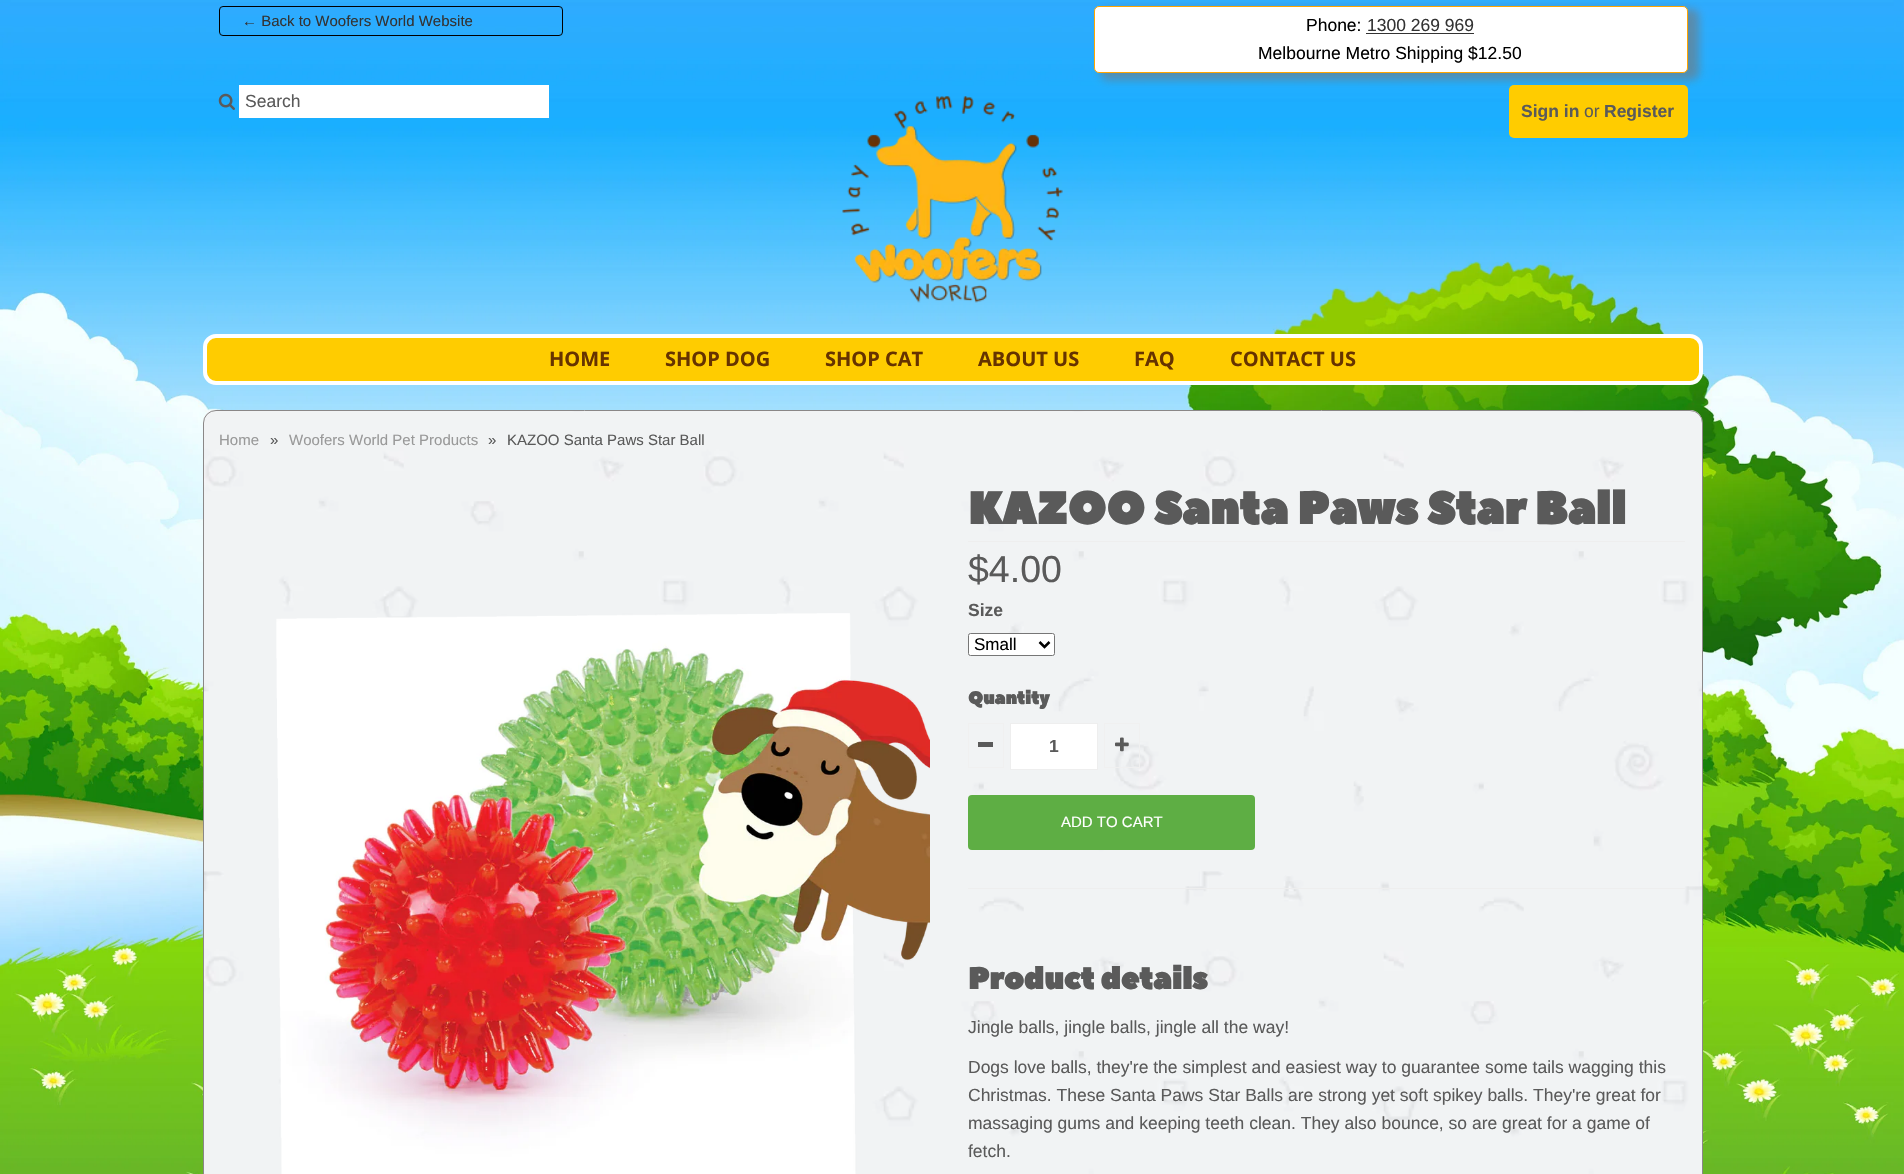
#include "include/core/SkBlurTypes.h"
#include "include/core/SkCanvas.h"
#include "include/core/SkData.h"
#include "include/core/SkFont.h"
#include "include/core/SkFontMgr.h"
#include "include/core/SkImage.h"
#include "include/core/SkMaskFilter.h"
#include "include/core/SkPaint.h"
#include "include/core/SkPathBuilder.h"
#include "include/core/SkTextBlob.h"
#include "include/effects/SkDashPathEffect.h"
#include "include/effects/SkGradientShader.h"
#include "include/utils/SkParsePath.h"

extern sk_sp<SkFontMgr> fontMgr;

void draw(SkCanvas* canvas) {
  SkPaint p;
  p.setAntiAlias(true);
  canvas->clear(SK_ColorWHITE);
  canvas->drawImageRect(SkImages::DeferredFromEncodedData(SkData::MakeFromFileName("images/1.png")), SkRect::MakeLTRB(0, 0, 1904, 1174), SkSamplingOptions());
  p.setStyle(SkPaint::kStroke_Style);
  p.setStrokeWidth(1);
  p.setColor(SK_ColorBLACK);
  canvas->drawRoundRect(SkRect::MakeLTRB(219.5f, 6.5f, 562.5f, 35.5f), 3.5f, 3.5f, p);
  p.setStyle(SkPaint::kFill_Style);
  p.setColor(SkColorSetARGB(153, 119, 119, 119));
  p.setMaskFilter(SkMaskFilter::MakeBlur(kNormal_SkBlurStyle, 4));
  canvas->drawRoundRect(SkRect::MakeLTRB(1100, 9, 1699, 80), 8, 8, p);
  p.setMaskFilter(nullptr);
  p.setColor(SK_ColorWHITE);
  canvas->drawRoundRect(SkRect::MakeLTRB(1094.5f, 6.5f, 1687.5f, 72.5f), 4.5f, 4.5f, p);
  p.setStyle(SkPaint::kStroke_Style);
  p.setColor(SkColorSetRGB(255, 165, 0));
  canvas->drawRoundRect(SkRect::MakeLTRB(1094.5f, 6.5f, 1687.5f, 72.5f), 4.5f, 4.5f, p);
  p.setStyle(SkPaint::kFill_Style);
  p.setColor(SkColorSetRGB(51, 51, 51));
  canvas->drawRect(SkRect::MakeLTRB(1366, 33, 1474, 34), p);
  canvas->drawImageRect(SkImages::DeferredFromEncodedData(SkData::MakeFromFileName("images/2.png")), SkRect::MakeLTRB(218, 93, 235, 110), SkSamplingOptions());
  p.setColor(SK_ColorWHITE);
  canvas->drawRect(SkRect::MakeLTRB(239, 85, 549, 118), p);
  canvas->drawImageRect(SkImages::DeferredFromEncodedData(SkData::MakeFromFileName("images/3.png")), SkRect::MakeLTRB(842, 96, 1063, 303), SkSamplingOptions());
  p.setColor(SkColorSetRGB(255, 204, 0));
  canvas->drawRoundRect(SkRect::MakeLTRB(1509, 85, 1688, 138), 5, 5, p);
  canvas->drawRoundRect(SkRect::MakeLTRB(205, 336, 1701, 383), 11, 11, p);
  p.setStyle(SkPaint::kStroke_Style);
  p.setStrokeWidth(4);
  p.setColor(SK_ColorWHITE);
  canvas->drawRoundRect(SkRect::MakeLTRB(205, 336, 1701, 383), 11, 11, p);
  canvas->drawImageRect(SkImages::DeferredFromEncodedData(SkData::MakeFromFileName("images/4.png")), SkRect::MakeLTRB(203, 410, 1703, 1174), SkSamplingOptions());
  p.setStrokeWidth(1);
  p.setColor(SkColorSetRGB(138, 135, 135));
  canvas->drawRoundRect(SkRect::MakeLTRB(203.5f, 410.5f, 1702.5f, 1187.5f), 12.5f, 12.5f, p);
  canvas->drawImageRect(SkImages::DeferredFromEncodedData(SkData::MakeFromFileName("images/5.png")), SkRect::MakeLTRB(276, 613, 930, 1174), SkSamplingOptions());
  p.setStyle(SkPaint::kFill_Style);
  p.setColor(SkColorSetRGB(238, 238, 238));
  canvas->drawRect(SkRect::MakeLTRB(968, 541, 1685, 542), p);
  p.setColor(SK_ColorWHITE);
  canvas->drawRoundRect(SkRect::MakeLTRB(968.5f, 633.5f, 1054.5f, 655.5f), 2, 2, p);
  p.setStyle(SkPaint::kStroke_Style);
  p.setColor(SkColorSetRGB(118, 118, 118));
  canvas->drawRoundRect(SkRect::MakeLTRB(968.5f, 633.5f, 1054.5f, 655.5f), 2, 2, p);
  p.setStrokeWidth(2.5f);
  p.setColor(SK_ColorBLACK);
  canvas->drawPath(SkPathBuilder().moveTo(1039.5f, 642).lineTo(1044.5f, 647).lineTo(1049.5f, 642).detach(), p);
  p.setStrokeWidth(1);
  p.setColor(SkColorSetRGB(240, 240, 240));
  canvas->drawRect(SkRect::MakeLTRB(968.5f, 723.5f, 1003.5f, 767.5f), p);
  p.setStyle(SkPaint::kFill_Style);
  p.setColor(SkColorSetRGB(90, 90, 90));
  canvas->drawRect(SkRect::MakeLTRB(978, 742, 993, 747), p);
  p.setColor(SK_ColorWHITE);
  canvas->drawRect(SkRect::MakeLTRB(1010.5f, 723.5f, 1097.5f, 769.5f), p);
  p.setStyle(SkPaint::kStroke_Style);
  p.setColor(SkColorSetRGB(238, 238, 238));
  canvas->drawRect(SkRect::MakeLTRB(1010.5f, 723.5f, 1097.5f, 769.5f), p);
  p.setColor(SkColorSetRGB(240, 240, 240));
  canvas->drawRect(SkRect::MakeLTRB(1104.5f, 723.5f, 1139.5f, 767.5f), p);
  canvas->drawImageRect(SkImages::DeferredFromEncodedData(SkData::MakeFromFileName("images/6.png")), SkRect::MakeLTRB(1115, 737, 1129, 752), SkSamplingOptions());
  p.setStyle(SkPaint::kFill_Style);
  p.setColor(SkColorSetRGB(94, 174, 68));
  canvas->drawRoundRect(SkRect::MakeLTRB(968, 795, 1255, 850), 4, 4, p);
  p.setColor(SkColorSetRGB(238, 238, 238));
  canvas->drawRect(SkRect::MakeLTRB(968, 888, 1685, 889), p);
  SkFont font1(fontMgr->matchFamilyStyle("Liberation Sans", SkFontStyle::Normal()), 15);
  font1.setSubpixel(true);
  p.setColor(SkColorSetRGB(51, 51, 51));
  canvas->drawString("← Back to Woofers World Website", 242, 26, font1, p);
  SkFont font2(fontMgr->matchFamilyStyle("Liberation Sans", SkFontStyle::Normal()), 17.5f);
  font2.setSubpixel(true);
  p.setColor(SK_ColorBLACK);
  canvas->drawString("Phone:", 1306, 31, font2, p);
  p.setColor(SkColorSetRGB(51, 51, 51));
  canvas->drawString("1300 269 969", 1367, 31, font2, p);
  p.setColor(SK_ColorBLACK);
  canvas->drawString("Melbourne Metro Shipping $12.50", 1258, 59, font2, p);
  p.setColor(SkColorSetRGB(90, 90, 90));
  canvas->drawString("Search", 245, 107, font2, p);
  SkFont font3(fontMgr->matchFamilyStyle("Liberation Sans", SkFontStyle::Bold()), 17.5f);
  font3.setSubpixel(true);
  canvas->drawString("Sign in", 1521, 117, font3, p);
  canvas->drawString("or", 1584, 117, font2, p);
  canvas->drawString("Register", 1604, 117, font3, p);
  SkFont font4(fontMgr->matchFamilyStyle("Open Sans", SkFontStyle::Bold()), 20);
  font4.setSubpixel(true);
  p.setColor(SkColorSetRGB(102, 51, 0));
  canvas->drawString("HOME", 549, 366, font4, p);
  canvas->drawString("SHOP DOG", 665, 366, font4, p);
  canvas->drawString("SHOP CAT", 825, 366, font4, p);
  canvas->drawString("ABOUT US", 978, 366, font4, p);
  canvas->drawString("FAQ", 1134, 366, font4, p);
  canvas->drawString("CONTACT US", 1230, 366, font4, p);
  p.setColor(SkColorSetRGB(153, 153, 153));
  canvas->drawString("Home", 219, 445, font1, p);
  p.setColor(SkColorSetRGB(90, 90, 90));
  canvas->drawString("»", 270, 445, font1, p);
  p.setColor(SkColorSetRGB(153, 153, 153));
  canvas->drawString("Woofers World Pet Products", 289, 445, font1, p);
  p.setColor(SkColorSetRGB(90, 90, 90));
  canvas->drawString("»", 488, 445, font1, p);
  canvas->drawString("KAZOO Santa Paws Star Ball", 507, 445, font1, p);
  SkFont font5(fontMgr->matchFamilyStyle("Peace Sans", SkFontStyle::Bold()), 45);
  font5.setSubpixel(true);
  canvas->drawString("KAZOO Santa Paws Star Ball", 968, 524, font5, p);
  SkFont font6(fontMgr->matchFamilyStyle("Liberation Sans", SkFontStyle::Normal()), 37.5f);
  font6.setSubpixel(true);
  canvas->drawString("$4.00", 968, 582, font6, p);
  canvas->drawString("Size", 968, 616, font3, p);
  SkFont font7(fontMgr->matchFamilyStyle("Liberation Sans", SkFontStyle::Normal()), 17);
  font7.setSubpixel(true);
  p.setColor(SK_ColorBLACK);
  canvas->drawString("Small", 974, 650, font7, p);
  SkFont font8(fontMgr->matchFamilyStyle("Peace Sans", SkFontStyle::Bold()), 17.5f);
  font8.setSubpixel(true);
  p.setColor(SkColorSetRGB(90, 90, 90));
  canvas->drawString("Quantity", 968, 704, font8, p);
  canvas->drawString("1", 1049, 752, font3, p);
  p.setColor(SK_ColorWHITE);
  canvas->drawString("ADD TO CART", 1061, 827, font1, p);
  SkFont font9(fontMgr->matchFamilyStyle("Peace Sans", SkFontStyle::Bold()), 30);
  font9.setSubpixel(true);
  p.setColor(SkColorSetRGB(90, 90, 90));
  canvas->drawString("Product details", 968, 989, font9, p);
  canvas->drawString("Jingle balls, jingle balls, jingle all the way!", 968, 1033, font2, p);
  canvas->drawString("Dogs love balls, they're the simplest and easiest way to guarantee some tails wagging this", 968, 1073, font2, p);
  canvas->drawString("Christmas. These Santa Paws Star Balls are strong yet soft spikey balls. They're great for", 968, 1101, font2, p);
  canvas->drawString("massaging gums and keeping teeth clean. They also bounce, so are great for a game of", 968, 1129, font2, p);
  canvas->drawString("fetch.", 968, 1157, font2, p);
}
